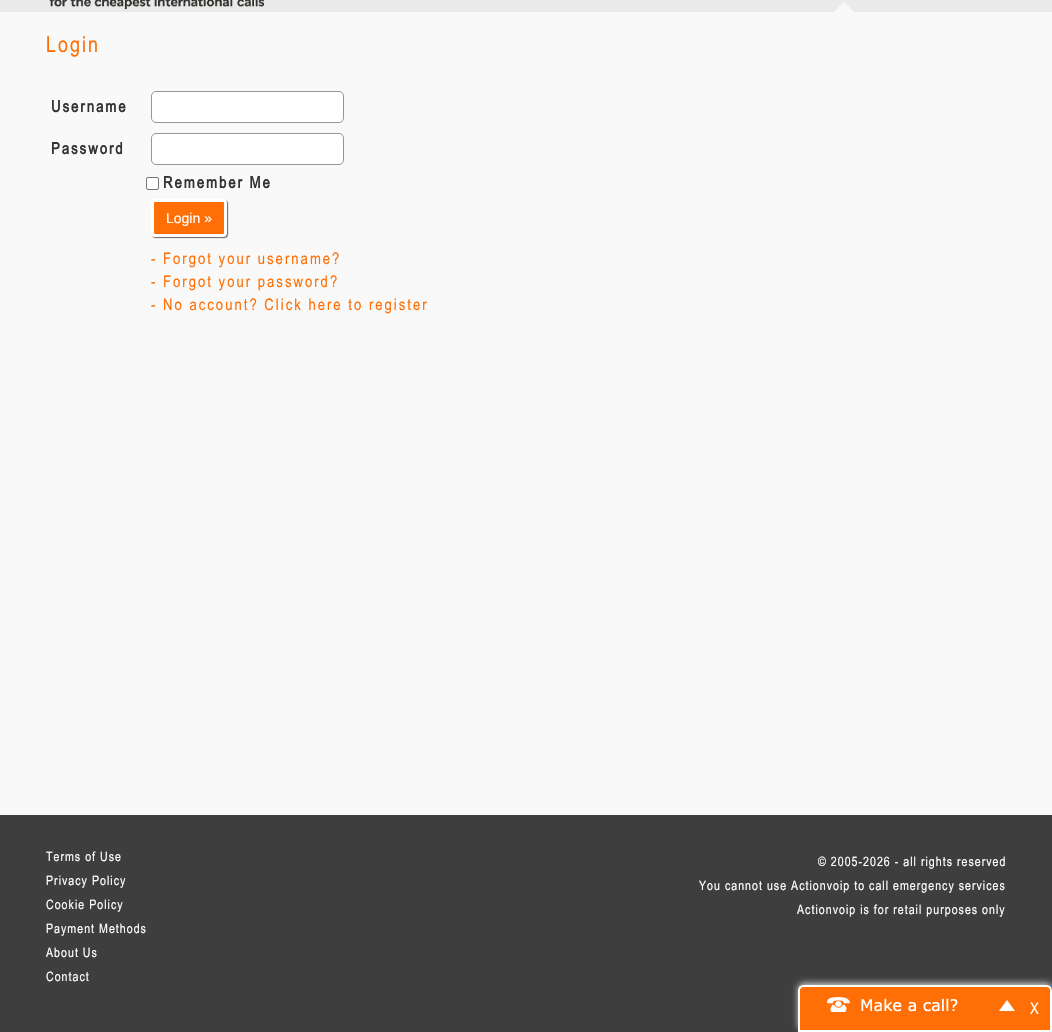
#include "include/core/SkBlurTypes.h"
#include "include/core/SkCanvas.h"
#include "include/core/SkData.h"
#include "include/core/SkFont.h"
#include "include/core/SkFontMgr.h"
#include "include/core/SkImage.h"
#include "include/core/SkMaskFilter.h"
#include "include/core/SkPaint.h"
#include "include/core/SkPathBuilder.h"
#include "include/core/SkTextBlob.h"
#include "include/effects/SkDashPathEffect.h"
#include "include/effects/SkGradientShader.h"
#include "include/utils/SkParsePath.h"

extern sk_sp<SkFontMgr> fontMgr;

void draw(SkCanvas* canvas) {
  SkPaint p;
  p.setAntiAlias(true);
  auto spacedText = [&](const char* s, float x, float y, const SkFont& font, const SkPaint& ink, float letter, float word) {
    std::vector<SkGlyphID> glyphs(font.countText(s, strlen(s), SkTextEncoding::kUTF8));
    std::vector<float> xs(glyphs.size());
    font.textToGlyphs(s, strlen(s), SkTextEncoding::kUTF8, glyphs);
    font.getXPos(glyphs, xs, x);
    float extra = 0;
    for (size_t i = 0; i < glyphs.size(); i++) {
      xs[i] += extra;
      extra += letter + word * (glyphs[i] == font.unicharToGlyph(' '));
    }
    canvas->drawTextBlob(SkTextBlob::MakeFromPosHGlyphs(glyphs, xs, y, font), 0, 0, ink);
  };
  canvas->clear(SkColorSetRGB(249, 249, 249));
  p.setColor(SkColorSetRGB(234, 234, 234));
  canvas->drawRect(SkRect::MakeLTRB(0, 0, 1052, 12), p);
  canvas->drawImageRect(SkImages::DeferredFromEncodedData(SkData::MakeFromFileName("images/1.png")), SkRect::MakeLTRB(49, 0, 265, 10), SkSamplingOptions());
  p.setColor(SkColorSetRGB(229, 229, 229));
  canvas->drawRect(SkRect::MakeLTRB(395, 0, 396, 2), p);
  canvas->drawRect(SkRect::MakeLTRB(464, 0, 465, 2), p);
  canvas->drawRect(SkRect::MakeLTRB(534, 0, 535, 2), p);
  canvas->drawRect(SkRect::MakeLTRB(635, 0, 636, 2), p);
  canvas->drawRect(SkRect::MakeLTRB(749, 0, 750, 2), p);
  canvas->drawRect(SkRect::MakeLTRB(809, 0, 810, 2), p);
  canvas->drawImageRect(SkImages::DeferredFromEncodedData(SkData::MakeFromFileName("images/2.png")), SkRect::MakeLTRB(834, 2, 854, 12), SkSamplingOptions());
  p.setColor(SK_ColorWHITE);
  canvas->drawRoundRect(SkRect::MakeLTRB(151.5f, 91.5f, 343.5f, 122.5f), 4.5f, 4.5f, p);
  p.setStyle(SkPaint::kStroke_Style);
  p.setStrokeWidth(1);
  p.setColor(SkColorSetRGB(150, 150, 150));
  canvas->drawRoundRect(SkRect::MakeLTRB(151.5f, 91.5f, 343.5f, 122.5f), 4.5f, 4.5f, p);
  p.setStyle(SkPaint::kFill_Style);
  p.setColor(SK_ColorWHITE);
  canvas->drawRoundRect(SkRect::MakeLTRB(151.5f, 133.5f, 343.5f, 164.5f), 4.5f, 4.5f, p);
  p.setStyle(SkPaint::kStroke_Style);
  p.setColor(SkColorSetRGB(150, 150, 150));
  canvas->drawRoundRect(SkRect::MakeLTRB(151.5f, 133.5f, 343.5f, 164.5f), 4.5f, 4.5f, p);
  p.setStyle(SkPaint::kFill_Style);
  p.setColor(SK_ColorWHITE);
  canvas->drawRoundRect(SkRect::MakeLTRB(146.5f, 177.5f, 158.5f, 189.5f), 1.5f, 1.5f, p);
  p.setStyle(SkPaint::kStroke_Style);
  p.setColor(SkColorSetRGB(118, 118, 118));
  canvas->drawRoundRect(SkRect::MakeLTRB(146.5f, 177.5f, 158.5f, 189.5f), 1.5f, 1.5f, p);
  p.setStyle(SkPaint::kFill_Style);
  p.setColor(SkColorSetRGB(102, 102, 102));
  p.setMaskFilter(SkMaskFilter::MakeBlur(kNormal_SkBlurStyle, 0.5f));
  canvas->drawRoundRect(SkRect::MakeLTRB(152, 200, 228, 238), 4, 4, p);
  p.setMaskFilter(nullptr);
  p.setColor(SkColorSetRGB(255, 111, 6));
  canvas->drawRoundRect(SkRect::MakeLTRB(152.5f, 200.5f, 225.5f, 235.5f), 2.5f, 2.5f, p);
  p.setStyle(SkPaint::kStroke_Style);
  p.setStrokeWidth(3);
  p.setColor(SK_ColorWHITE);
  canvas->drawRoundRect(SkRect::MakeLTRB(152.5f, 200.5f, 225.5f, 235.5f), 2.5f, 2.5f, p);
  p.setStyle(SkPaint::kFill_Style);
  p.setColor(SkColorSetRGB(62, 62, 62));
  canvas->drawRect(SkRect::MakeLTRB(0, 815, 1052, 1032), p);
  p.setColor(SkColorSetRGB(204, 204, 204));
  p.setMaskFilter(SkMaskFilter::MakeBlur(kNormal_SkBlurStyle, 3));
  canvas->drawRoundRect(SkRect::MakeLTRB(798, 983, 1052, 1030), 6, 6, p);
  p.setMaskFilter(nullptr);
  p.setColor(SkColorSetRGB(255, 111, 6));
  canvas->drawPath(SkPathBuilder().moveTo(804, 986).lineTo(1046, 986).cubicTo(1049, 986, 1051, 988, 1051, 991).lineTo(1051, 1031).lineTo(799, 1031).lineTo(799, 991).cubicTo(799, 988, 801, 986, 804, 986).close().detach(), p);
  p.setStyle(SkPaint::kStroke_Style);
  p.setStrokeWidth(2);
  p.setColor(SK_ColorWHITE);
  canvas->drawPath(SkPathBuilder().moveTo(804, 986).lineTo(1046, 986).cubicTo(1049, 986, 1051, 988, 1051, 991).lineTo(1051, 1031).lineTo(799, 1031).lineTo(799, 991).cubicTo(799, 988, 801, 986, 804, 986).close().detach(), p);
  p.setStyle(SkPaint::kFill_Style);
  p.setColor(SkColorSetRGB(255, 111, 6));
  canvas->drawRect(SkRect::MakeLTRB(800, 989, 801, 991), p);
  canvas->drawImageRect(SkImages::DeferredFromEncodedData(SkData::MakeFromFileName("images/3.png")), SkRect::MakeLTRB(827, 997, 1015, 1012), SkSamplingOptions());
  canvas->drawRect(SkRect::MakeLTRB(1049, 989, 1050, 991), p);
  SkFont font1(fontMgr->matchFamilyStyle("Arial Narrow", SkFontStyle::Normal()), 22);
  font1.setSubpixel(true);
  spacedText("Login", 46, 52, font1, p, 2, 0);
  SkFont font2(fontMgr->matchFamilyStyle("Arial Narrow", SkFontStyle::Bold()), 16);
  font2.setSubpixel(true);
  p.setColor(SkColorSetRGB(51, 51, 51));
  spacedText("Username", 51, 112, font2, p, 2, 0);
  spacedText("Password", 51, 154, font2, p, 2, 0);
  spacedText("Remember Me", 163, 188, font2, p, 2, 0);
  SkFont font3(fontMgr->matchFamilyStyle("Liberation Sans", SkFontStyle::Normal()), 14);
  font3.setSubpixel(true);
  p.setColor(SK_ColorWHITE);
  canvas->drawString("Login »", 166, 223, font3, p);
  SkFont font4(fontMgr->matchFamilyStyle("Arial Narrow", SkFontStyle::Normal()), 16);
  font4.setSubpixel(true);
  p.setColor(SkColorSetRGB(255, 111, 6));
  spacedText("- Forgot your username?", 151, 264, font4, p, 2, 0);
  spacedText("- Forgot your password?", 151, 287, font4, p, 2, 0);
  spacedText("- No account? Click here to register", 151, 310, font4, p, 2, 0);
  SkFont font5(fontMgr->matchFamilyStyle("Arial Narrow", SkFontStyle::Normal()), 13);
  font5.setSubpixel(true);
  p.setColor(SK_ColorWHITE);
  spacedText("Terms of Use", 46, 861, font5, p, 1, 0);
  spacedText("Privacy Policy", 46, 885, font5, p, 1, 0);
  spacedText("Cookie Policy", 46, 909, font5, p, 1, 0);
  spacedText("Payment Methods", 46, 933, font5, p, 1, 0);
  spacedText("About Us", 46, 957, font5, p, 1, 0);
  spacedText("Contact", 46, 981, font5, p, 1, 0);
  spacedText("© 2005-2026 - all rights reserved", 818, 866, font5, p, 1, 0);
  spacedText("You cannot use Actionvoip to call emergency services", 699, 890, font5, p, 1, 0);
  spacedText("Actionvoip is for retail purposes only", 797, 914, font5, p, 1, 0);
  spacedText("X", 1030, 1014, font4, p, 2, 0);
}
